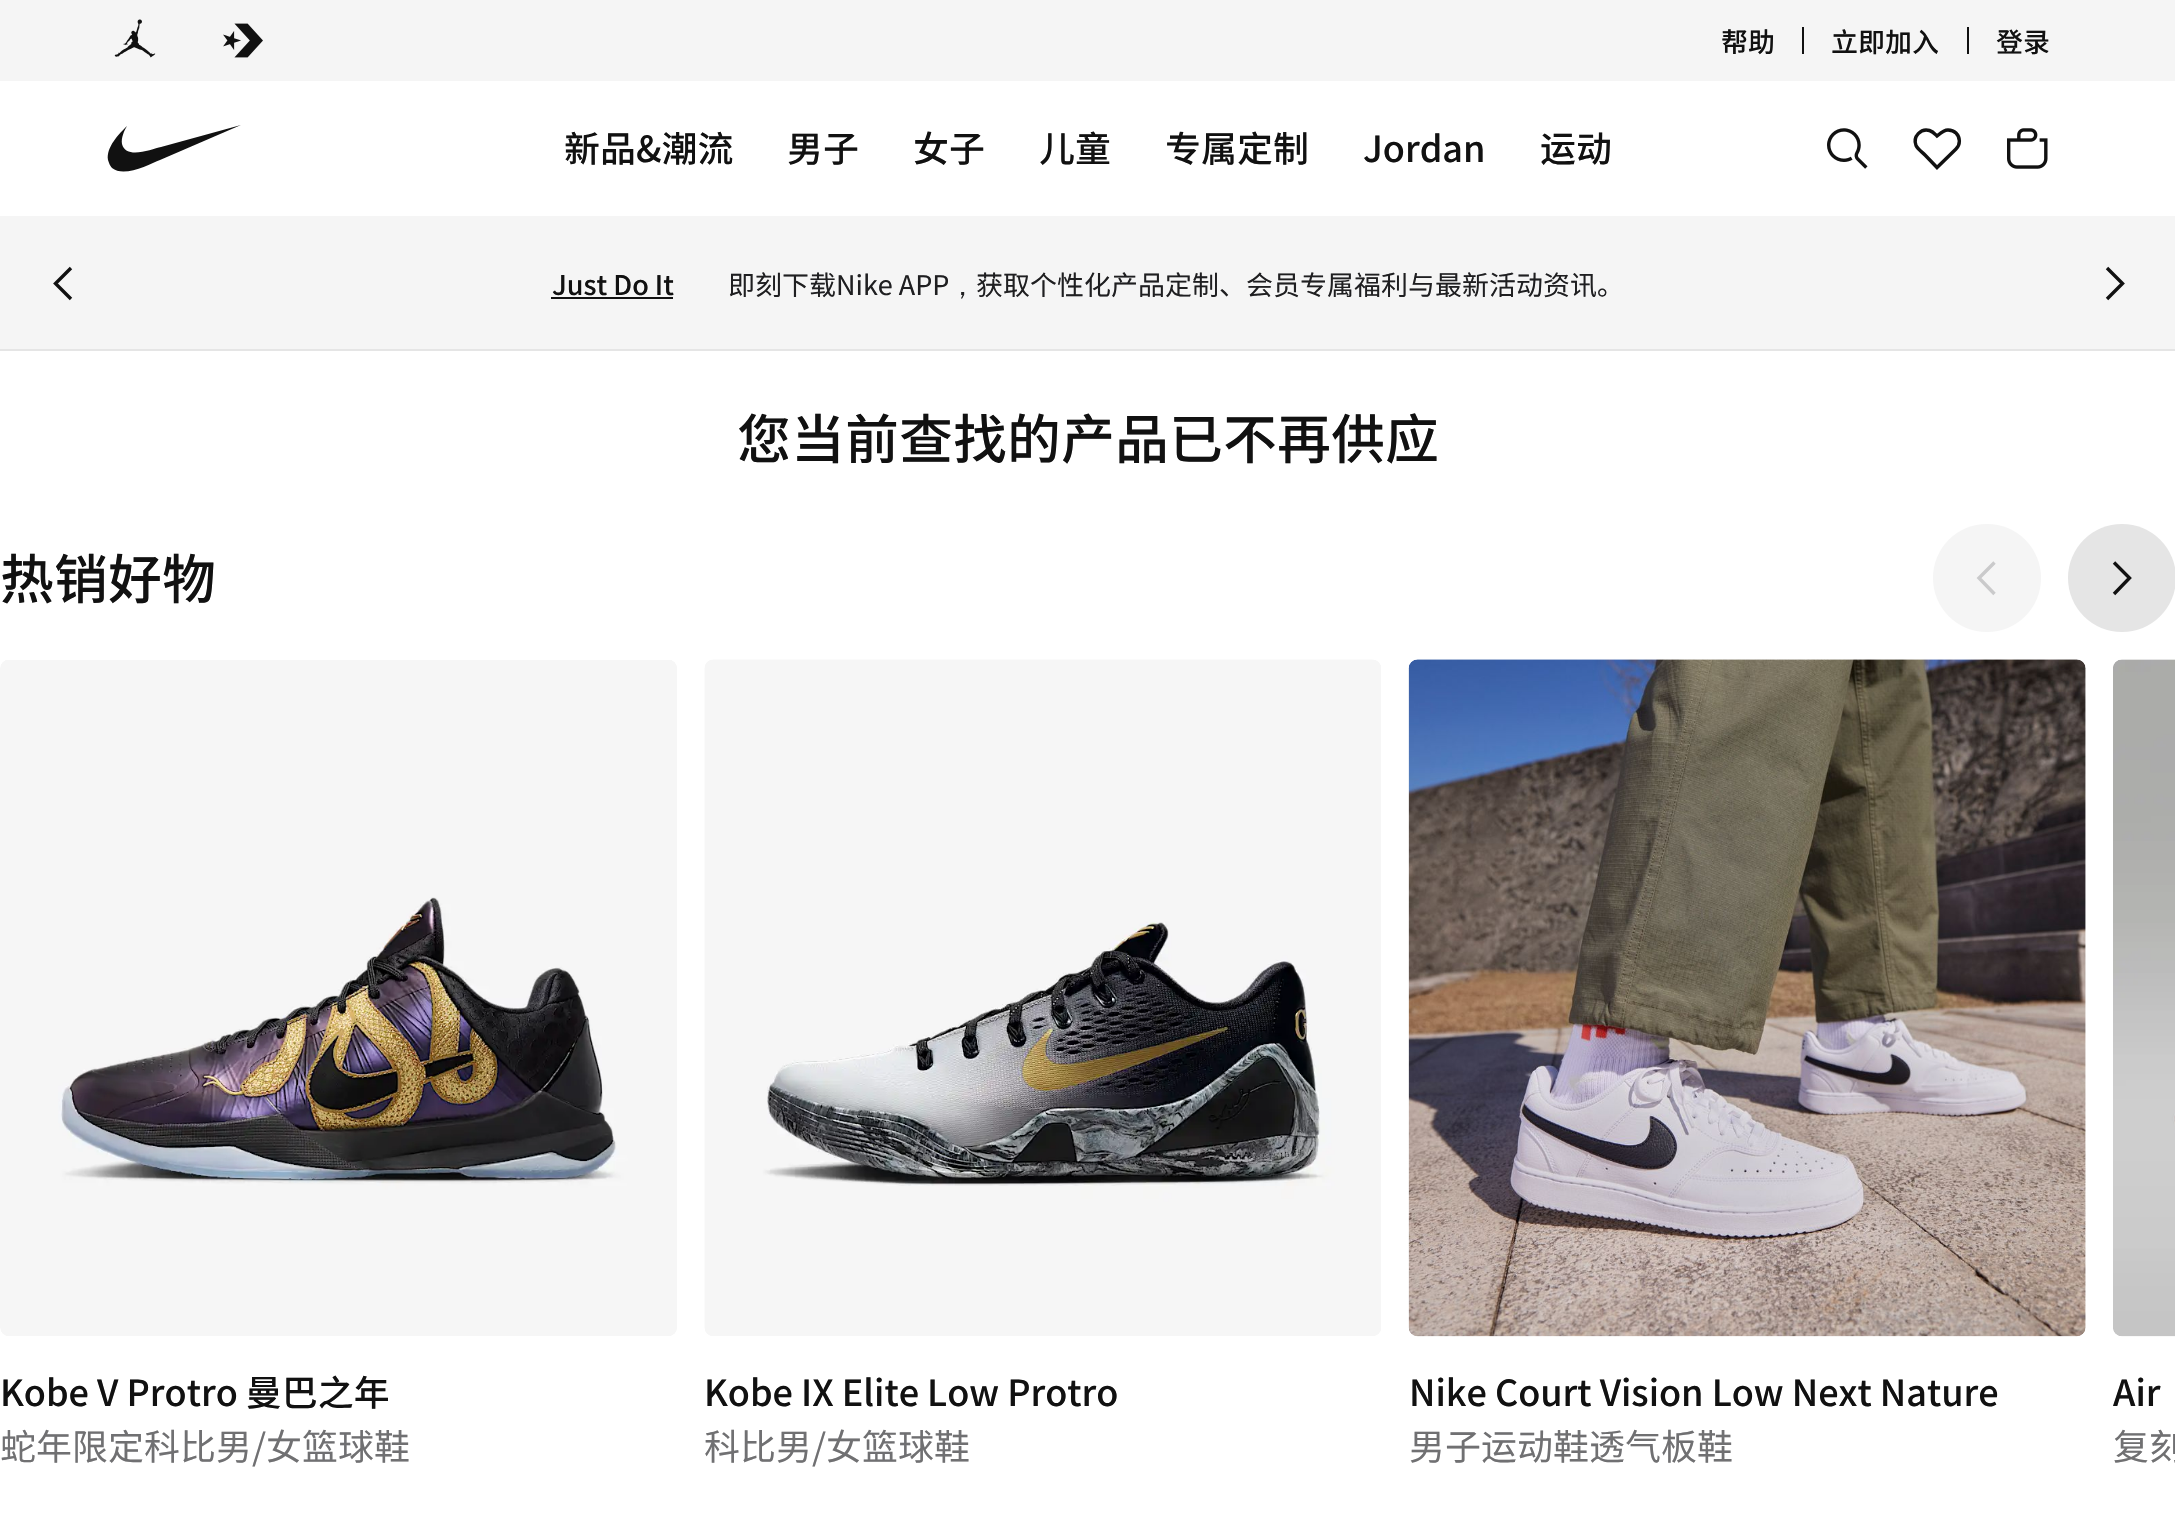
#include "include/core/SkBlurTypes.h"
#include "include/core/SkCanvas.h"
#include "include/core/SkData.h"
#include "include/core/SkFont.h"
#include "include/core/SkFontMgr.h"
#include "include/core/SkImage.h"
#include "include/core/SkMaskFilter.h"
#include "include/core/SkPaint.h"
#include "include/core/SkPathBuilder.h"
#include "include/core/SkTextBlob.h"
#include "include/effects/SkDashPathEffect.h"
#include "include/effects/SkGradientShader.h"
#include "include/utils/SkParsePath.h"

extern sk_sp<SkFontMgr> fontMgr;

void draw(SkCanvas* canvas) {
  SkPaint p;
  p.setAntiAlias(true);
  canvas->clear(SK_ColorWHITE);
  p.setColor(SkColorSetRGB(245, 245, 245));
  canvas->drawRect(SkRect::MakeLTRB(0, 0, 2175, 81), p);
  canvas->drawImageRect(SkImages::DeferredFromEncodedData(SkData::MakeFromFileName("images/1.png")), SkRect::MakeLTRB(114, 19, 156, 58), SkSamplingOptions());
  canvas->drawImageRect(SkImages::DeferredFromEncodedData(SkData::MakeFromFileName("images/2.png")), SkRect::MakeLTRB(223, 23, 263, 58), SkSamplingOptions());
  p.setColor(SkColorSetRGB(17, 17, 17));
  canvas->drawRect(SkRect::MakeLTRB(1802, 27, 1804, 54), p);
  canvas->drawRect(SkRect::MakeLTRB(1967, 27, 1969, 54), p);
  canvas->drawPath(SkPathBuilder(SkPathFillType::kEvenOdd).moveTo(241, 125).lineTo(160, 160).cubicTo(150, 164, 124, 178, 112, 168).cubicTo(110, 166, 109, 163, 108, 160).cubicTo(106, 147, 119, 134, 127, 126).cubicTo(124, 131, 121, 138, 122, 144).cubicTo(126, 160, 152, 149, 161, 147).close().detach(), p);
  canvas->drawImageRect(SkImages::DeferredFromEncodedData(SkData::MakeFromFileName("images/3.png")), SkRect::MakeLTRB(1827, 128, 1868, 169), SkSamplingOptions());
  p.setStyle(SkPaint::kStroke_Style);
  p.setStrokeWidth(3.4f);
  canvas->drawPath(SkPathBuilder().moveTo(1948, 130).cubicTo(1951, 130, 1954, 131, 1956, 133).cubicTo(1960.5f, 137.5f, 1960.5f, 144.5f, 1956, 149).lineTo(1937, 167.5f).lineTo(1925, 155).cubicTo(1922, 152, 1918, 149.5f, 1916, 145.5f).cubicTo(1912.5f, 136.5f, 1921, 128, 1929.5f, 130.5f).cubicTo(1933, 131.5f, 1935, 134, 1937, 136).cubicTo(1940.5f, 133, 1943.5f, 130, 1948, 130).detach(), p);
  canvas->drawImageRect(SkImages::DeferredFromEncodedData(SkData::MakeFromFileName("images/4.png")), SkRect::MakeLTRB(2007, 128, 2048, 169), SkSamplingOptions());
  p.setStyle(SkPaint::kFill_Style);
  p.setColor(SkColorSetRGB(245, 245, 245));
  canvas->drawRect(SkRect::MakeLTRB(0, 216, 2175, 349), p);
  p.setStyle(SkPaint::kStroke_Style);
  p.setColor(SkColorSetRGB(17, 17, 17));
  canvas->drawPath(SkPathBuilder().moveTo(71, 299).lineTo(55.5f, 283.5f).lineTo(71, 268).detach(), p);
  p.setStyle(SkPaint::kFill_Style);
  p.setColor(SkColorSetRGB(229, 229, 229));
  canvas->drawRect(SkRect::MakeLTRB(0, 349, 2175, 351), p);
  p.setColor(SkColorSetRGB(17, 17, 17));
  canvas->drawRect(SkRect::MakeLTRB(551, 297, 673, 299), p);
  p.setStyle(SkPaint::kStroke_Style);
  canvas->drawPath(SkPathBuilder().moveTo(2107, 299).lineTo(2122.5f, 283.5f).lineTo(2107, 268).detach(), p);
  p.setStyle(SkPaint::kFill_Style);
  p.setColor(SkColorSetRGB(245, 245, 245));
  canvas->drawCircle(1987, 578, 54, p);
  p.setStyle(SkPaint::kStroke_Style);
  p.setColor(SkColorSetRGB(202, 202, 203));
  canvas->drawPath(SkPathBuilder().moveTo(1994.5f, 594).lineTo(1979, 578).lineTo(1994.5f, 562.5f).detach(), p);
  p.setStyle(SkPaint::kFill_Style);
  p.setColor(SkColorSetRGB(229, 229, 229));
  canvas->drawCircle(2122, 578, 54, p);
  p.setStyle(SkPaint::kStroke_Style);
  p.setColor(SkColorSetRGB(17, 17, 17));
  canvas->drawPath(SkPathBuilder().moveTo(2114, 594).lineTo(2129.5f, 578).lineTo(2114, 562.5f).detach(), p);
  canvas->drawImageRect(SkImages::DeferredFromEncodedData(SkData::MakeFromFileName("images/5.png")), SkRect::MakeLTRB(0, 660, 677, 1336), SkSamplingOptions());
  canvas->drawImageRect(SkImages::DeferredFromEncodedData(SkData::MakeFromFileName("images/6.png")), SkRect::MakeLTRB(704, 659, 1381, 1336), SkSamplingOptions());
  canvas->drawImageRect(SkImages::DeferredFromEncodedData(SkData::MakeFromFileName("images/7.png")), SkRect::MakeLTRB(1408, 659, 2086, 1337), SkSamplingOptions());
  canvas->drawImageRect(SkImages::DeferredFromEncodedData(SkData::MakeFromFileName("images/8.png")), SkRect::MakeLTRB(2113, 659, 2175, 1337), SkSamplingOptions());
  SkFont font1(fontMgr->matchFamilyStyle("Noto Sans SC", SkFontStyle(500, SkFontStyle::kNormal_Width, SkFontStyle::kUpright_Slant)), 27);
  font1.setSubpixel(true);
  p.setStyle(SkPaint::kFill_Style);
  canvas->drawString("帮助", 1721, 52, font1, p);
  canvas->drawString("立即加入", 1831, 52, font1, p);
  canvas->drawString("登录", 1996, 52, font1, p);
  SkFont font2(fontMgr->matchFamilyStyle("Noto Sans SC", SkFontStyle(500, SkFontStyle::kNormal_Width, SkFontStyle::kUpright_Slant)), 36);
  font2.setSubpixel(true);
  canvas->drawString("新品&潮流", 564, 162, font2, p);
  canvas->drawString("男子", 787, 162, font2, p);
  canvas->drawString("女子", 913, 162, font2, p);
  canvas->drawString("儿童", 1039, 162, font2, p);
  canvas->drawString("专属定制", 1165, 162, font2, p);
  canvas->drawString("Jordan", 1363, 162, font2, p);
  canvas->drawString("运动", 1540, 162, font2, p);
  canvas->drawString("Just Do It", 552, 295, font1, p);
  SkFont font3(fontMgr->matchFamilyStyle("Noto Sans SC", SkFontStyle::Normal()), 27);
  font3.setSubpixel(true);
  p.setColor(SkColorSetRGB(31, 31, 33));
  canvas->drawString("即刻下载Nike APP", 728, 295, font3, p);
  SkFont font4(fontMgr->matchFamilyStyle("WenQuanYi Zen Hei", SkFontStyle(500, SkFontStyle::kNormal_Width, SkFontStyle::kUpright_Slant)), 27);
  font4.setSubpixel(true);
  canvas->drawString("，", 949, 295, font4, p);
  canvas->drawString("获取个性化产品定制、会员专属福利与最新活动资讯。", 976, 295, font3, p);
  SkFont font5(fontMgr->matchFamilyStyle("Noto Sans SC", SkFontStyle(500, SkFontStyle::kNormal_Width, SkFontStyle::kUpright_Slant)), 54);
  font5.setSubpixel(true);
  p.setColor(SkColorSetRGB(17, 17, 17));
  canvas->drawString("您当前查找的产品已不再供应", 737, 459, font5, p);
  canvas->drawString("热销好物", 0, 599, font5, p);
  canvas->drawString("Kobe V Protro 曼巴之年", 0, 1406, font2, p);
  SkFont font6(fontMgr->matchFamilyStyle("Noto Sans SC", SkFontStyle::Normal()), 36);
  font6.setSubpixel(true);
  p.setColor(SkColorSetRGB(112, 112, 114));
  canvas->drawString("蛇年限定科比男/女篮球鞋", 0, 1460, font6, p);
  p.setColor(SkColorSetRGB(17, 17, 17));
  canvas->drawString("Kobe IX Elite Low Protro", 704, 1406, font2, p);
  p.setColor(SkColorSetRGB(112, 112, 114));
  canvas->drawString("科比男/女篮球鞋", 704, 1460, font6, p);
  p.setColor(SkColorSetRGB(17, 17, 17));
  canvas->drawString("Nike Court Vision Low Next Nature", 1409, 1406, font2, p);
  p.setColor(SkColorSetRGB(112, 112, 114));
  canvas->drawString("男子运动鞋透气板鞋", 1409, 1460, font6, p);
  p.setColor(SkColorSetRGB(17, 17, 17));
  canvas->drawString("Air", 2113, 1406, font2, p);
  p.setColor(SkColorSetRGB(112, 112, 114));
  canvas->drawString("复刻", 2113, 1460, font6, p);
}
